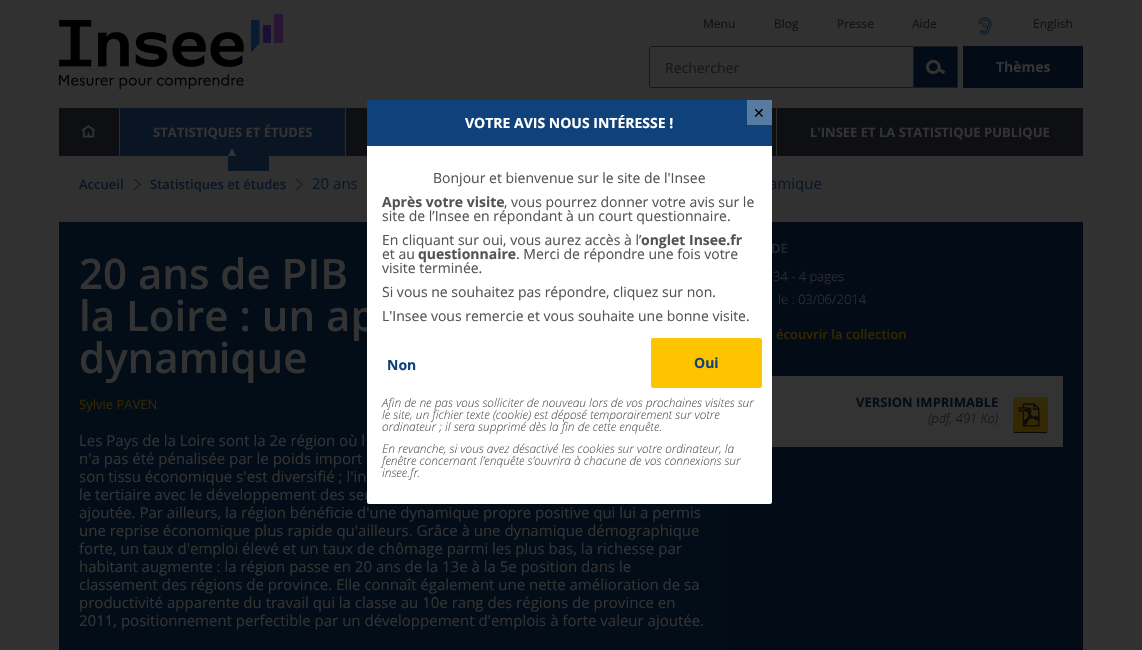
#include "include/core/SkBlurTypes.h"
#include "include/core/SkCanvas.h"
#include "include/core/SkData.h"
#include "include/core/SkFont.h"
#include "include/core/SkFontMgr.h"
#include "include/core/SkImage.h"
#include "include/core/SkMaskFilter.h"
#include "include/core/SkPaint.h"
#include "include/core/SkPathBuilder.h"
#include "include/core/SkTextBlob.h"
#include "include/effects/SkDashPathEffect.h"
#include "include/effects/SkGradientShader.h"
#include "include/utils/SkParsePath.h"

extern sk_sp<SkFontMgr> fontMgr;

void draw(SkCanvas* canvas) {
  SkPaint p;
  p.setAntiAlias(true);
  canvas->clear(SkColorSetRGB(49, 49, 49));
  canvas->drawImageRect(SkImages::DeferredFromEncodedData(SkData::MakeFromFileName("images/1.png")), SkRect::MakeLTRB(59, 14, 283, 89), SkSamplingOptions());
  canvas->drawImageRect(SkImages::DeferredFromEncodedData(SkData::MakeFromFileName("images/2.png")), SkRect::MakeLTRB(978, 17, 992, 35), SkSamplingOptions());
  p.setStyle(SkPaint::kStroke_Style);
  p.setStrokeWidth(1);
  p.setColor(SkColorSetRGB(24, 24, 24));
  canvas->drawPath(SkPathBuilder().moveTo(651, 46.5f).lineTo(913.5f, 46.5f).lineTo(913.5f, 87.5f).lineTo(651, 87.5f).cubicTo(650, 87.5f, 649.5f, 87, 649.5f, 86).lineTo(649.5f, 48).cubicTo(649.5f, 47, 650, 46.5f, 651, 46.5f).close().detach(), p);
  p.setStyle(SkPaint::kFill_Style);
  p.setColor(SkColorSetRGB(3, 11, 22));
  canvas->drawPath(SkPathBuilder().moveTo(914, 46).lineTo(956, 46).cubicTo(957, 46, 958, 47, 958, 48).lineTo(958, 86).cubicTo(958, 87, 957, 88, 956, 88).lineTo(914, 88).close().detach(), p);
  p.setColor(SkColorSetRGB(24, 24, 24));
  canvas->drawRect(SkRect::MakeLTRB(914, 46, 957, 47), p);
  canvas->drawRect(SkRect::MakeLTRB(957, 47, 958, 87), p);
  canvas->drawRect(SkRect::MakeLTRB(914, 87, 957, 88), p);
  canvas->drawImageRect(SkImages::DeferredFromEncodedData(SkData::MakeFromFileName("images/3.png")), SkRect::MakeLTRB(926, 60, 946, 75), SkSamplingOptions());
  p.setColor(SkColorSetRGB(3, 11, 22));
  canvas->drawRect(SkRect::MakeLTRB(963, 46, 1083, 88), p);
  p.setColor(SkColorSetRGB(13, 15, 18));
  canvas->drawRect(SkRect::MakeLTRB(59, 108, 119, 156), p);
  canvas->drawImageRect(SkImages::DeferredFromEncodedData(SkData::MakeFromFileName("images/4.png")), SkRect::MakeLTRB(82, 125, 95, 138), SkSamplingOptions());
  p.setColor(SkColorSetRGB(10, 21, 35));
  canvas->drawRect(SkRect::MakeLTRB(120, 108, 345, 156), p);
  p.setColor(SkColorSetRGB(45, 45, 45));
  canvas->drawRect(SkRect::MakeLTRB(119, 108, 120, 156), p);
  p.setColor(SkColorSetRGB(10, 21, 35));
  canvas->drawRect(SkRect::MakeLTRB(228, 156, 269, 171), p);
  p.setColor(SkColorSetRGB(51, 51, 51));
  canvas->drawPath(SkPathBuilder().moveTo(236, 156).lineTo(228, 156).lineTo(232, 148).close().detach(), p);
  p.setColor(SkColorSetRGB(13, 15, 18));
  canvas->drawRect(SkRect::MakeLTRB(346, 108, 367, 156), p);
  p.setColor(SkColorSetRGB(45, 45, 45));
  canvas->drawRect(SkRect::MakeLTRB(345, 108, 346, 156), p);
  p.setColor(SkColorSetRGB(13, 15, 18));
  canvas->drawRect(SkRect::MakeLTRB(772, 108, 776, 156), p);
  canvas->drawRect(SkRect::MakeLTRB(777, 108, 1083, 156), p);
  p.setColor(SkColorSetRGB(45, 45, 45));
  canvas->drawRect(SkRect::MakeLTRB(776, 108, 777, 156), p);
  p.setColor(SkColorSetRGB(15, 65, 122));
  canvas->drawPath(SkPathBuilder().moveTo(369, 100).lineTo(770, 100).cubicTo(771, 100, 772, 101, 772, 102).lineTo(772, 146).lineTo(367, 146).lineTo(367, 102).cubicTo(367, 101, 368, 100, 369, 100).close().detach(), p);
  p.setColor(SkColorSetARGB(77, 255, 255, 255));
  canvas->drawRect(SkRect::MakeLTRB(747, 100, 772, 125), p);
  canvas->drawImageRect(SkImages::DeferredFromEncodedData(SkData::MakeFromFileName("images/5.png")), SkRect::MakeLTRB(133, 178, 142, 191), SkSamplingOptions());
  canvas->drawImageRect(SkImages::DeferredFromEncodedData(SkData::MakeFromFileName("images/5.png")), SkRect::MakeLTRB(295, 178, 304, 191), SkSamplingOptions());
  p.setColor(SkColorSetRGB(3, 13, 24));
  canvas->drawRect(SkRect::MakeLTRB(59, 222, 727, 650), p);
  p.setColor(SkColorSetRGB(3, 11, 22));
  canvas->drawRect(SkRect::MakeLTRB(727, 222, 1083, 650), p);
  p.setColor(SkColorSetRGB(51, 51, 51));
  canvas->drawRect(SkRect::MakeLTRB(772, 376, 1063, 447), p);
  p.setColor(SkColorSetRGB(10, 10, 10));
  canvas->drawPath(SkPathBuilder().moveTo(1013, 430).cubicTo(1013, 434.5f, 1016.5f, 433, 1020, 433).lineTo(1041, 433).cubicTo(1044.5f, 433, 1048, 434.5f, 1048, 430).cubicTo(1048, 431, 1047, 432, 1046, 432).lineTo(1015, 432).cubicTo(1014, 432, 1013, 431, 1013, 430).close().detach(), p);
  p.setColor(SkColorSetRGB(51, 39, 0));
  canvas->drawRoundRect(SkRect::MakeLTRB(1013, 397, 1048, 432), 2, 2, p);
  {
    const SkColor colors[] = {SkColorSetARGB(0, 51, 51, 51), SkColorSetARGB(64, 51, 51, 51)};
    const float stops[] = {0, 1};
    const SkPoint ends[] = {{1031, 432}, {1031, 397}};
    p.setShader(SkGradientShader::MakeLinear(ends, colors, stops, 2, SkTileMode::kClamp));
    p.setAlpha(255);
  }
  canvas->drawRoundRect(SkRect::MakeLTRB(1013, 397, 1048, 432), 2, 2, p);
  canvas->drawImageRect(SkImages::DeferredFromEncodedData(SkData::MakeFromFileName("images/6.png")), SkRect::MakeLTRB(1018, 403, 1040, 427), SkSamplingOptions());
  SkFont font1(fontMgr->matchFamilyStyle("Open Sans", SkFontStyle::Normal()), 12);
  font1.setSubpixel(true);
  p.setShader(nullptr);
  p.setColor(SkColorSetRGB(15, 16, 16));
  canvas->drawString("Menu", 703, 28, font1, p);
  canvas->drawString("Blog", 774, 28, font1, p);
  canvas->drawString("Presse", 837, 28, font1, p);
  canvas->drawString("Aide", 912, 28, font1, p);
  canvas->drawString("English", 1033, 28, font1, p);
  SkFont font2(fontMgr->matchFamilyStyle("Open Sans", SkFontStyle::Normal()), 14);
  font2.setSubpixel(true);
  p.setColor(SkColorSetRGB(23, 23, 23));
  canvas->drawString("Rechercher", 665, 73, font2, p);
  SkFont font3(fontMgr->matchFamilyStyle("Open Sans", SkFontStyle::Bold()), 14);
  font3.setSubpixel(true);
  p.setColor(SkColorSetRGB(51, 51, 51));
  canvas->drawString("Thèmes", 996, 72, font3, p);
  SkFont font4(fontMgr->matchFamilyStyle("Open Sans", SkFontStyle::Bold()), 13);
  font4.setSubpixel(true);
  canvas->drawString("STATISTIQUES ET ÉTUDES", 153, 137, font4, p);
  canvas->drawString("L'INSEE ET LA STATISTIQUE PUBLIQUE", 810, 137, font4, p);
  SkFont font5(fontMgr->matchFamilyStyle("DejaVu Sans", SkFontStyle::Normal()), 14);
  font5.setSubpixel(true);
  p.setColor(SK_ColorBLACK);
  canvas->drawString("✕", 753, 118, font5, p);
  p.setColor(SK_ColorWHITE);
  canvas->drawString("VOTRE AVIS NOUS INTÉRESSE !", 465, 128, font3, p);
  SkFont font6(fontMgr->matchFamilyStyle("Open Sans", SkFontStyle(600, SkFontStyle::kNormal_Width, SkFontStyle::kUpright_Slant)), 13);
  font6.setSubpixel(true);
  p.setColor(SkColorSetRGB(10, 21, 35));
  canvas->drawString("Accueil", 79, 189, font6, p);
  canvas->drawString("Statistiques et études", 150, 189, font6, p);
  SkFont font7(fontMgr->matchFamilyStyle("Open Sans", SkFontStyle::Normal()), 15);
  font7.setSubpixel(true);
  canvas->drawString("20 ans", 312, 189, font7, p);
  canvas->drawString("amique", 769, 189, font7, p);
  SkFont font8(fontMgr->matchFamilyStyle("Open Sans", SkFontStyle(600, SkFontStyle::kNormal_Width, SkFontStyle::kUpright_Slant)), 42);
  font8.setSubpixel(true);
  p.setColor(SkColorSetRGB(51, 51, 51));
  canvas->drawString("20 ans de PIB", 79, 289, font8, p);
  canvas->drawString("la Loire : un ap", 79, 331, font8, p);
  canvas->drawString("dynamique", 79, 373, font8, p);
  SkFont font9(fontMgr->matchFamilyStyle("Open Sans", SkFontStyle::Normal()), 13);
  font9.setSubpixel(true);
  p.setColor(SkColorSetRGB(51, 39, 0));
  canvas->drawString("Sylvie PAVEN", 79, 409, font9, p);
  p.setColor(SkColorSetRGB(51, 51, 51));
  canvas->drawString("Les Pays de la Loire sont la 2e région où l", 79, 446, font7, p);
  canvas->drawString("n'a pas été pénalisée par le poids import", 79, 464, font7, p);
  canvas->drawString("son tissu économique s'est diversifié ; l'in", 79, 482, font7, p);
  canvas->drawString("le tertiaire avec le développement des ser", 79, 500, font7, p);
  p.setColor(SK_ColorWHITE);
  canvas->drawPath(SkPathBuilder().moveTo(367, 146).lineTo(772, 146).lineTo(772, 502).cubicTo(772, 503, 771, 504, 770, 504).lineTo(369, 504).cubicTo(368, 504, 367, 503, 367, 502).close().detach(), p);
  SkFont font10(fontMgr->matchFamilyStyle("Open Sans", SkFontStyle(300, SkFontStyle::kNormal_Width, SkFontStyle::kItalic_Slant)), 12);
  font10.setSubpixel(true);
  p.setColor(SkColorSetRGB(82, 84, 87));
  canvas->drawString("insee.fr.", 382, 477, font10, p);
  canvas->drawString("fenêtre concernant l’enquête s’ouvrira à chacune de vos connexions sur", 382, 465, font10, p);
  canvas->drawString("En revanche, si vous avez désactivé les cookies sur votre ordinateur, la", 382, 453, font10, p);
  canvas->drawString("ordinateur ; il sera supprimé dès la fin de cette enquête.", 382, 431, font10, p);
  canvas->drawString("le site, un fichier texte (cookie) est déposé temporairement sur votre", 382, 419, font10, p);
  canvas->drawString("Afin de ne pas vous solliciter de nouveau lors de vos prochaines visites sur", 382, 407, font10, p);
  p.setColor(SkColorSetRGB(15, 65, 122));
  canvas->drawString("Non", 387, 370, font3, p);
  p.setColor(SkColorSetRGB(82, 84, 87));
  canvas->drawString("L'Insee vous remercie et vous souhaite une bonne visite.", 382, 321, font2, p);
  canvas->drawString("Si vous ne souhaitez pas répondre, cliquez sur non.", 382, 297, font2, p);
  canvas->drawString("visite terminée.", 382, 273, font2, p);
  canvas->drawString(". Merci de répondre une fois votre", 516, 259, font2, p);
  canvas->drawString("questionnaire", 418, 259, font3, p);
  canvas->drawString("et au", 382, 259, font2, p);
  canvas->drawString("onglet Insee.fr", 641, 245, font3, p);
  canvas->drawString("En cliquant sur oui, vous aurez accès à l’", 382, 245, font2, p);
  canvas->drawString("site de l’Insee en répondant à un court questionnaire.", 382, 221, font2, p);
  canvas->drawString(", vous pourrez donner votre avis sur le", 504, 207, font2, p);
  canvas->drawString("Après votre visite", 382, 207, font3, p);
  canvas->drawString("Bonjour et bienvenue sur le site de l'Insee", 433, 183, font2, p);
  p.setColor(SkColorSetRGB(255, 196, 0));
  canvas->drawRoundRect(SkRect::MakeLTRB(651, 338, 762, 388), 2, 2, p);
  p.setColor(SkColorSetRGB(15, 65, 122));
  canvas->drawString("Oui", 694, 368, font3, p);
  p.setColor(SkColorSetRGB(51, 51, 51));
  canvas->drawString("ajoutée. Par ailleurs, la région bénéficie d'une dynamique propre positive qui lui a permis", 79, 518, font7, p);
  canvas->drawString("une reprise économique plus rapide qu'ailleurs. Grâce à une dynamique démographique", 79, 536, font7, p);
  canvas->drawString("forte, un taux d'emploi élevé et un taux de chômage parmi les plus bas, la richesse par", 79, 554, font7, p);
  canvas->drawString("habitant augmente : la région passe en 20 ans de la 13e à la 5e position dans le", 79, 572, font7, p);
  canvas->drawString("classement des régions de province. Elle connaît également une nette amélioration de sa", 79, 590, font7, p);
  canvas->drawString("productivité apparente du travail qui la classe au 10e rang des régions de province en", 79, 608, font7, p);
  canvas->drawString("2011, positionnement perfectible par un développement d'emplois à forte valeur ajoutée.", 79, 626, font7, p);
  p.setColor(SkColorSetRGB(34, 40, 48));
  canvas->drawString("DE", 771, 253, font6, p);
  SkFont font11(fontMgr->matchFamilyStyle("Open Sans", SkFontStyle(300, SkFontStyle::kNormal_Width, SkFontStyle::kUpright_Slant)), 13);
  font11.setSubpixel(true);
  p.setColor(SkColorSetRGB(51, 51, 51));
  canvas->drawString("34 - 4 pages", 773, 281, font11, p);
  canvas->drawString("le : 03/06/2014", 778, 304, font11, p);
  p.setColor(SkColorSetRGB(51, 39, 0));
  canvas->drawString("écouvrir la collection", 776, 339, font6, p);
  p.setColor(SkColorSetRGB(3, 13, 24));
  canvas->drawString("VERSION IMPRIMABLE", 856, 407, font4, p);
  SkFont font12(fontMgr->matchFamilyStyle("Open Sans", SkFontStyle(300, SkFontStyle::kNormal_Width, SkFontStyle::kItalic_Slant)), 13);
  font12.setSubpixel(true);
  p.setColor(SkColorSetRGB(15, 16, 16));
  canvas->drawString("(pdf, 491 Ko)", 928, 423, font12, p);
}
